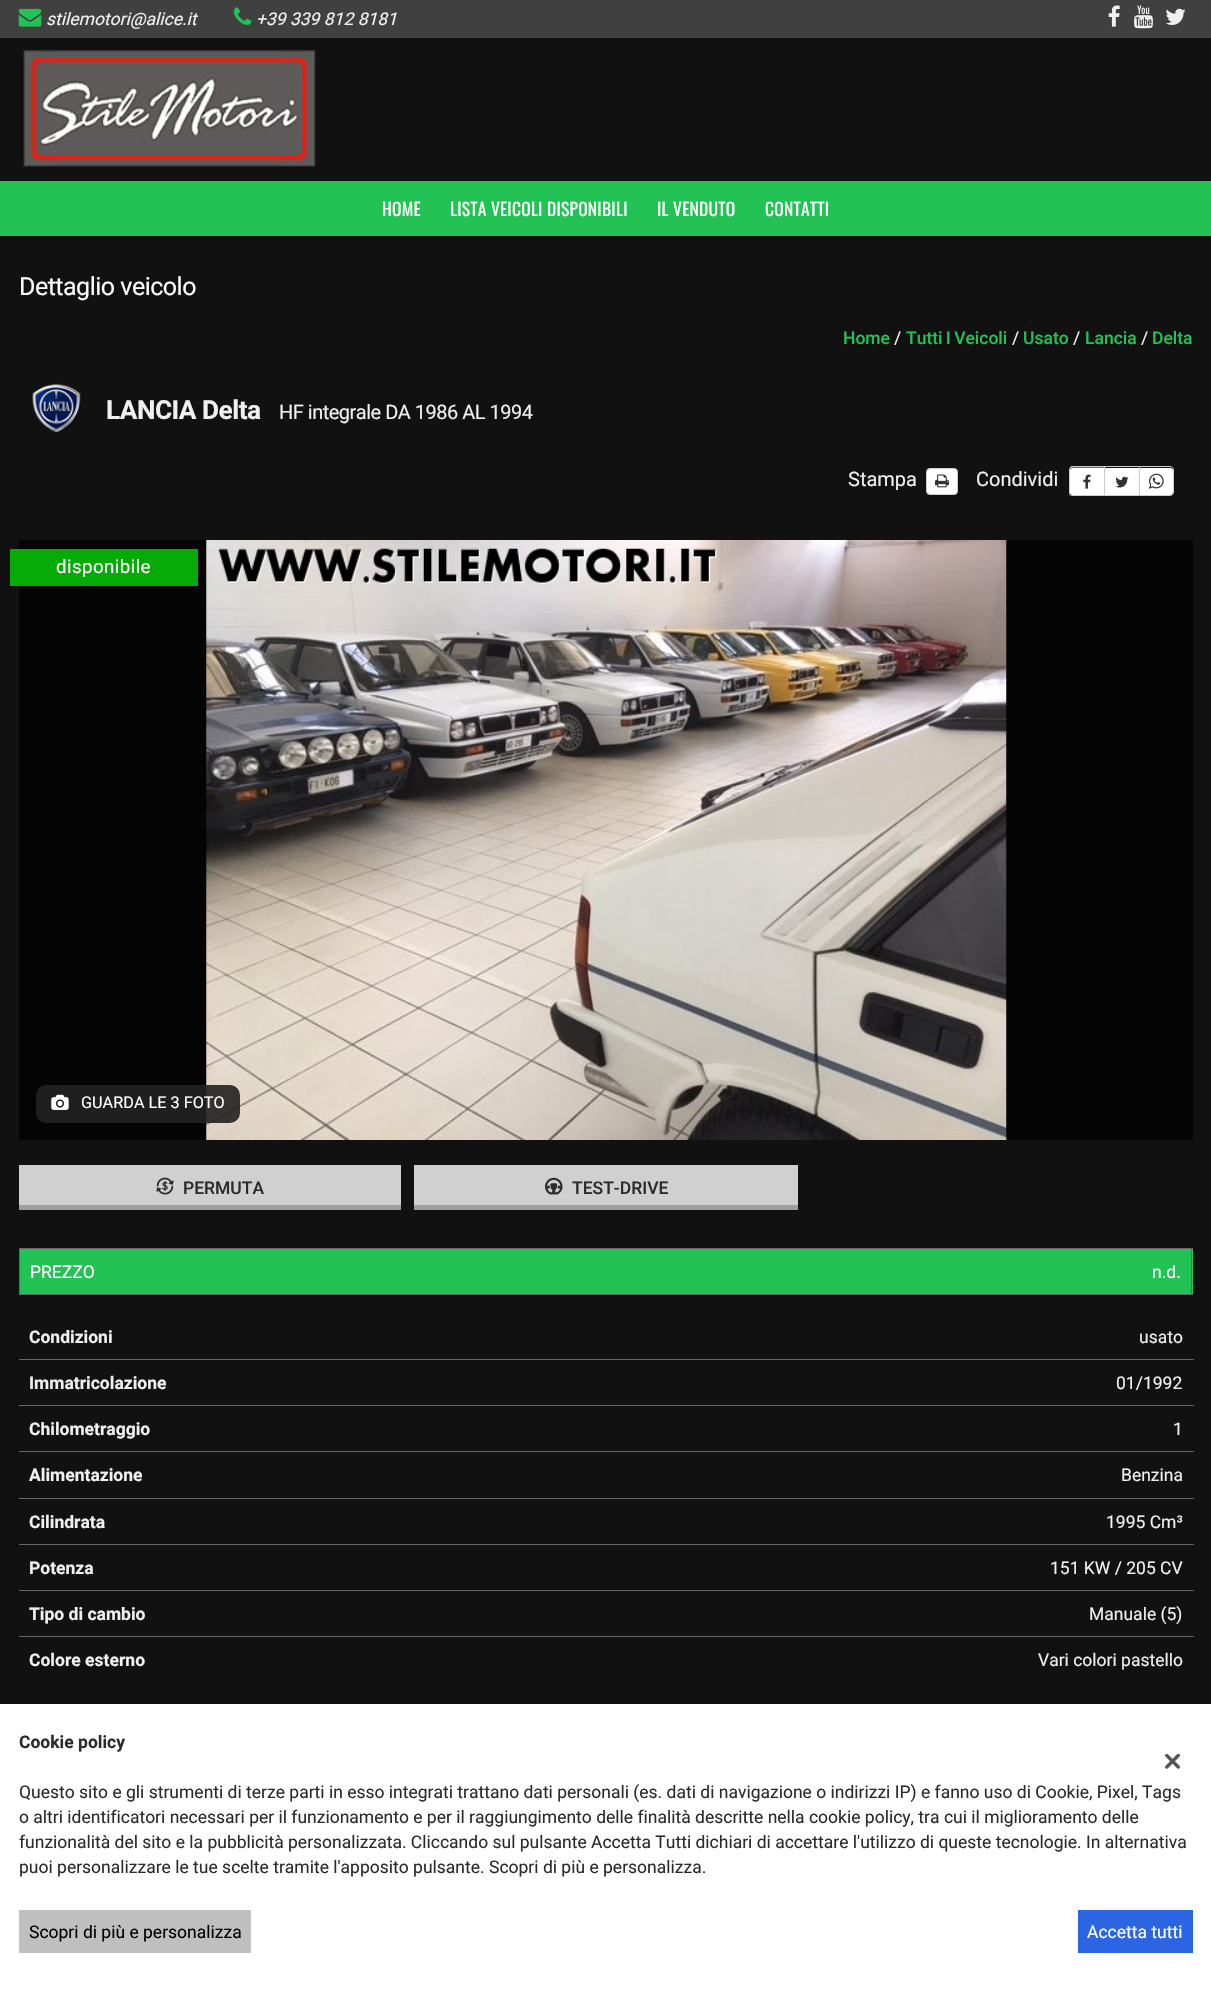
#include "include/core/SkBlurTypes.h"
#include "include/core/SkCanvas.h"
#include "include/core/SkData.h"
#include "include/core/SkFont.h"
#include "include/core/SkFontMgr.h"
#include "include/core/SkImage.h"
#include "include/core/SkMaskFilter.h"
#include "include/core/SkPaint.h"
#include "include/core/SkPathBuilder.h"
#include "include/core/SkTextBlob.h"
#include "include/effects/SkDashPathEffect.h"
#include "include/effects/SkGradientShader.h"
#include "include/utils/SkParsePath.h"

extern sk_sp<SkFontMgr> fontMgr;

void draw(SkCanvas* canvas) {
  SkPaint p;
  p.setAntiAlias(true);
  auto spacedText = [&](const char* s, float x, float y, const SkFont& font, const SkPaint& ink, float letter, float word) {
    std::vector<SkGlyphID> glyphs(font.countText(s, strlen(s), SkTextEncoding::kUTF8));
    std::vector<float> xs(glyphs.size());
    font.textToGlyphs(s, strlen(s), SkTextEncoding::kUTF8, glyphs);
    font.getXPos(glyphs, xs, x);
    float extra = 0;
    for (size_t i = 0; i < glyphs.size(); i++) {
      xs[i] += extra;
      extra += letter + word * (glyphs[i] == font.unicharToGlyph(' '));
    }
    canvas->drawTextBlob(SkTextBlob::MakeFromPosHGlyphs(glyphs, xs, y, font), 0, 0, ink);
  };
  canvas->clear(SkColorSetRGB(17, 17, 17));
  p.setColor(SkColorSetRGB(64, 64, 64));
  canvas->drawRect(SkRect::MakeLTRB(0, 0, 1211, 38), p);
  canvas->drawImageRect(SkImages::DeferredFromEncodedData(SkData::MakeFromFileName("images/1.png")), SkRect::MakeLTRB(18, 8, 42, 27), SkSamplingOptions());
  canvas->drawImageRect(SkImages::DeferredFromEncodedData(SkData::MakeFromFileName("images/2.png")), SkRect::MakeLTRB(233, 7, 252, 25), SkSamplingOptions());
  canvas->drawImageRect(SkImages::DeferredFromEncodedData(SkData::MakeFromFileName("images/3.png")), SkRect::MakeLTRB(1108, 5, 1120, 27), SkSamplingOptions());
  canvas->drawImageRect(SkImages::DeferredFromEncodedData(SkData::MakeFromFileName("images/4.png")), SkRect::MakeLTRB(1134, 5, 1153, 29), SkSamplingOptions());
  canvas->drawImageRect(SkImages::DeferredFromEncodedData(SkData::MakeFromFileName("images/5.png")), SkRect::MakeLTRB(1165, 8, 1186, 25), SkSamplingOptions());
  canvas->drawImageRect(SkImages::DeferredFromEncodedData(SkData::MakeFromFileName("images/6.png")), SkRect::MakeLTRB(23, 50, 316, 167), SkSamplingOptions());
  p.setColor(SkColorSetRGB(35, 194, 85));
  canvas->drawRect(SkRect::MakeLTRB(0, 181, 1211, 236), p);
  canvas->drawImageRect(SkImages::DeferredFromEncodedData(SkData::MakeFromFileName("images/7.png")), SkRect::MakeLTRB(32, 383, 81, 433), SkSamplingOptions());
  p.setColor(SK_ColorWHITE);
  canvas->drawRoundRect(SkRect::MakeLTRB(926.5f, 468.5f, 957.5f, 494.5f), 3.5f, 3.5f, p);
  p.setStyle(SkPaint::kStroke_Style);
  p.setStrokeWidth(1);
  p.setColor(SkColorSetRGB(204, 204, 204));
  canvas->drawRoundRect(SkRect::MakeLTRB(926.5f, 468.5f, 957.5f, 494.5f), 3.5f, 3.5f, p);
  canvas->drawImageRect(SkImages::DeferredFromEncodedData(SkData::MakeFromFileName("images/8.png")), SkRect::MakeLTRB(935, 474, 949, 488), SkSamplingOptions());
  p.setStyle(SkPaint::kFill_Style);
  p.setColor(SK_ColorWHITE);
  canvas->drawPath(SkPathBuilder().moveTo(1072.5f, 468).lineTo(1104, 468).lineTo(1104, 495).lineTo(1072.5f, 495).cubicTo(1071, 495, 1070, 494, 1070, 492.5f).lineTo(1070, 470.5f).cubicTo(1070, 469, 1071, 468, 1072.5f, 468).close().detach(), p);
  p.setColor(SkColorSetRGB(204, 204, 204));
  canvas->drawPath(SkPathBuilder(SkPathFillType::kEvenOdd).moveTo(1072.5f, 466).lineTo(1104, 466).lineTo(1104, 496).lineTo(1072.5f, 496).cubicTo(1070.5f, 496, 1069, 494.5f, 1069, 492.5f).lineTo(1069, 470).cubicTo(1069, 468, 1070.5f, 466, 1072.5f, 466).close().moveTo(1072.5f, 467.5f).lineTo(1104, 467.5f).lineTo(1104, 495).lineTo(1072.5f, 495).cubicTo(1071, 495, 1070, 494, 1070, 492.5f).lineTo(1070, 470).cubicTo(1070, 468.5f, 1071, 467.5f, 1072.5f, 467.5f).close().detach(), p);
  canvas->drawImageRect(SkImages::DeferredFromEncodedData(SkData::MakeFromFileName("images/9.png")), SkRect::MakeLTRB(1083, 474, 1091, 489), SkSamplingOptions());
  p.setColor(SK_ColorWHITE);
  canvas->drawRect(SkRect::MakeLTRB(1105, 468, 1139, 495), p);
  p.setColor(SkColorSetRGB(204, 204, 204));
  canvas->drawRect(SkRect::MakeLTRB(1104, 466, 1139, 467), p);
  canvas->drawRect(SkRect::MakeLTRB(1104, 495, 1139, 496), p);
  canvas->drawRect(SkRect::MakeLTRB(1104, 466, 1105, 496), p);
  canvas->drawImageRect(SkImages::DeferredFromEncodedData(SkData::MakeFromFileName("images/10.png")), SkRect::MakeLTRB(1115, 476, 1129, 488), SkSamplingOptions());
  p.setColor(SK_ColorWHITE);
  canvas->drawPath(SkPathBuilder().moveTo(1140, 468).lineTo(1170.5f, 468).cubicTo(1172, 468, 1173, 469, 1173, 470.5f).lineTo(1173, 492.5f).cubicTo(1173, 494, 1172, 495, 1170.5f, 495).lineTo(1140, 495).close().detach(), p);
  p.setStyle(SkPaint::kStroke_Style);
  p.setColor(SkColorSetRGB(204, 204, 204));
  canvas->drawPath(SkPathBuilder().moveTo(1139.5f, 466.5f).lineTo(1170, 466.5f).cubicTo(1172, 466.5f, 1173.5f, 468, 1173.5f, 470).lineTo(1173.5f, 492).cubicTo(1173.5f, 494, 1172, 495.5f, 1170, 495.5f).lineTo(1139.5f, 495.5f).close().detach(), p);
  canvas->drawImageRect(SkImages::DeferredFromEncodedData(SkData::MakeFromFileName("images/11.png")), SkRect::MakeLTRB(1148, 473, 1164, 489), SkSamplingOptions());
  p.setStyle(SkPaint::kFill_Style);
  p.setColor(SkColorSetRGB(4, 4, 4));
  canvas->drawRect(SkRect::MakeLTRB(19, 540, 1193, 1140), p);
  p.setColor(SkColorSetRGB(7, 171, 7));
  canvas->drawRect(SkRect::MakeLTRB(10, 549, 198, 586), p);
  canvas->drawImageRect(SkImages::DeferredFromEncodedData(SkData::MakeFromFileName("images/13.png")), SkRect::MakeLTRB(206, 540, 1007, 1140), SkSamplingOptions());
  p.setColor(SkColorSetARGB(230, 33, 33, 33));
  canvas->drawRoundRect(SkRect::MakeLTRB(36, 1085, 240, 1123), 10, 10, p);
  canvas->drawImageRect(SkImages::DeferredFromEncodedData(SkData::MakeFromFileName("images/12.png")), SkRect::MakeLTRB(51, 1094, 69, 1110), SkSamplingOptions());
  p.setColor(SkColorSetRGB(208, 208, 208));
  canvas->drawRect(SkRect::MakeLTRB(19, 1165, 401, 1205), p);
  p.setColor(SkColorSetRGB(157, 157, 157));
  canvas->drawRect(SkRect::MakeLTRB(19, 1205, 401, 1210), p);
  canvas->drawImageRect(SkImages::DeferredFromEncodedData(SkData::MakeFromFileName("images/14.png")), SkRect::MakeLTRB(156, 1177, 174, 1195), SkSamplingOptions());
  p.setColor(SkColorSetRGB(208, 208, 208));
  canvas->drawRect(SkRect::MakeLTRB(414, 1165, 798, 1205), p);
  p.setColor(SkColorSetRGB(157, 157, 157));
  canvas->drawRect(SkRect::MakeLTRB(414, 1205, 798, 1210), p);
  canvas->drawImageRect(SkImages::DeferredFromEncodedData(SkData::MakeFromFileName("images/15.png")), SkRect::MakeLTRB(545, 1177, 563, 1195), SkSamplingOptions());
  p.setColor(SkColorSetRGB(102, 102, 102));
  canvas->drawRect(SkRect::MakeLTRB(19, 1248, 1193, 1249), p);
  p.setColor(SkColorSetRGB(35, 194, 85));
  canvas->drawRect(SkRect::MakeLTRB(20, 1249, 1193, 1294), p);
  p.setColor(SkColorSetRGB(102, 102, 102));
  canvas->drawRect(SkRect::MakeLTRB(1191, 1248, 1192, 1295), p);
  canvas->drawRect(SkRect::MakeLTRB(19, 1294, 1193, 1295), p);
  canvas->drawRect(SkRect::MakeLTRB(19, 1248, 20, 1295), p);
  canvas->drawRect(SkRect::MakeLTRB(19, 1359, 1194, 1360), p);
  canvas->drawRect(SkRect::MakeLTRB(19, 1405, 1194, 1406), p);
  canvas->drawRect(SkRect::MakeLTRB(19, 1451, 1194, 1452), p);
  canvas->drawRect(SkRect::MakeLTRB(19, 1498, 1194, 1499), p);
  canvas->drawRect(SkRect::MakeLTRB(19, 1544, 1194, 1545), p);
  canvas->drawRect(SkRect::MakeLTRB(19, 1590, 1194, 1591), p);
  canvas->drawRect(SkRect::MakeLTRB(19, 1636, 1194, 1637), p);
  p.setColor(SK_ColorWHITE);
  canvas->drawRect(SkRect::MakeLTRB(0, 1704, 1211, 1989), p);
  p.setColor(SkColorSetRGB(191, 191, 191));
  canvas->drawRect(SkRect::MakeLTRB(19, 1910, 251, 1953), p);
  p.setColor(SkColorSetRGB(44, 101, 225));
  canvas->drawRect(SkRect::MakeLTRB(1078, 1910, 1193, 1953), p);
  canvas->drawImageRect(SkImages::DeferredFromEncodedData(SkData::MakeFromFileName("images/16.png")), SkRect::MakeLTRB(1165, 1754, 1180, 1769), SkSamplingOptions());
  SkFont font1(fontMgr->matchFamilyStyle("Roboto", SkFontStyle::Italic()), 17.5f);
  font1.setSubpixel(true);
  p.setColor(SkColorSetRGB(240, 240, 240));
  canvas->drawString("stilemotori@alice.it", 46, 25, font1, p);
  canvas->drawString("+39 339 812 8181", 256, 25, font1, p);
  SkFont font2(fontMgr->matchFamilyStyle("Oswald", SkFontStyle::Normal()), 17.5f);
  font2.setSubpixel(true);
  p.setColor(SK_ColorWHITE);
  spacedText("HOME", 382, 216, font2, p, 0.25f, 0);
  spacedText("LISTA VEICOLI DISPONIBILI", 450, 216, font2, p, 0.25f, 0);
  spacedText("IL VENDUTO", 657, 216, font2, p, 0.25f, 0);
  spacedText("CONTATTI", 765, 216, font2, p, 0.25f, 0);
  SkFont font3(fontMgr->matchFamilyStyle("Roboto", SkFontStyle::Normal()), 25);
  font3.setSubpixel(true);
  spacedText("Dettaglio veicolo", 19, 295, font3, p, -0.5f, 0);
  SkFont font4(fontMgr->matchFamilyStyle("Roboto", SkFontStyle(500, SkFontStyle::kNormal_Width, SkFontStyle::kUpright_Slant)), 17.5f);
  font4.setSubpixel(true);
  p.setColor(SkColorSetRGB(35, 194, 85));
  canvas->drawString("Home", 843, 344, font4, p);
  SkFont font5(fontMgr->matchFamilyStyle("Roboto", SkFontStyle::Normal()), 17.5f);
  font5.setSubpixel(true);
  p.setColor(SkColorSetRGB(240, 240, 240));
  canvas->drawString("/", 894, 344, font5, p);
  p.setColor(SkColorSetRGB(35, 194, 85));
  spacedText("Tutti I Veicoli", 906, 344, font4, p, 0, -1);
  p.setColor(SkColorSetRGB(240, 240, 240));
  canvas->drawString("/", 1012, 344, font5, p);
  p.setColor(SkColorSetRGB(35, 194, 85));
  canvas->drawString("Usato", 1023, 344, font4, p);
  p.setColor(SkColorSetRGB(240, 240, 240));
  canvas->drawString("/", 1073, 344, font5, p);
  p.setColor(SkColorSetRGB(35, 194, 85));
  canvas->drawString("Lancia", 1085, 344, font4, p);
  p.setColor(SkColorSetRGB(240, 240, 240));
  canvas->drawString("/", 1141, 344, font5, p);
  p.setColor(SkColorSetRGB(35, 194, 85));
  canvas->drawString("Delta", 1152, 344, font4, p);
  SkFont font6(fontMgr->matchFamilyStyle("Roboto", SkFontStyle::Bold()), 26.25f);
  font6.setSubpixel(true);
  p.setColor(SkColorSetRGB(240, 240, 240));
  spacedText("LANCIA Delta", 106, 419, font6, p, -0.5f, 0);
  SkFont font7(fontMgr->matchFamilyStyle("Roboto", SkFontStyle::Normal()), 20);
  font7.setSubpixel(true);
  spacedText("HF integrale DA 1986 AL 1994", 279, 419, font7, p, -0.5f, 0);
  canvas->drawString("Stampa", 848, 486, font7, p);
  canvas->drawString("Condividi", 976, 486, font7, p);
  SkFont font8(fontMgr->matchFamilyStyle("Roboto", SkFontStyle::Normal()), 18.75f);
  font8.setSubpixel(true);
  p.setColor(SK_ColorWHITE);
  spacedText("disponibile", 56, 573, font8, p, 0.4f, 0);
  SkFont font9(fontMgr->matchFamilyStyle("Roboto", SkFontStyle::Normal()), 16.25f);
  font9.setSubpixel(true);
  canvas->drawString("GUARDA LE 3 FOTO", 81, 1108, font9, p);
  p.setColor(SkColorSetRGB(43, 43, 43));
  canvas->drawString("PERMUTA", 183, 1194, font4, p);
  canvas->drawString("TEST-DRIVE", 572, 1194, font4, p);
  p.setColor(SK_ColorWHITE);
  canvas->drawString("PREZZO", 30, 1278, font5, p);
  canvas->drawString("n.d.", 1152, 1278, font5, p);
  SkFont font10(fontMgr->matchFamilyStyle("Roboto", SkFontStyle::Bold()), 17.5f);
  font10.setSubpixel(true);
  p.setColor(SkColorSetRGB(240, 240, 240));
  canvas->drawString("Condizioni", 29, 1343, font10, p);
  canvas->drawString("usato", 1139, 1343, font5, p);
  canvas->drawString("Immatricolazione", 29, 1389, font10, p);
  canvas->drawString("01/1992", 1116, 1389, font5, p);
  canvas->drawString("Chilometraggio", 29, 1435, font10, p);
  canvas->drawString("1", 1173, 1435, font5, p);
  canvas->drawString("Alimentazione", 29, 1481, font10, p);
  canvas->drawString("Benzina", 1121, 1481, font5, p);
  canvas->drawString("Cilindrata", 29, 1528, font10, p);
  canvas->drawString("1995 Cm³", 1106, 1528, font5, p);
  canvas->drawString("Potenza", 29, 1574, font10, p);
  canvas->drawString("151 KW / 205 CV", 1050, 1574, font5, p);
  canvas->drawString("Tipo di cambio", 29, 1620, font10, p);
  canvas->drawString("Manuale (5)", 1089, 1620, font5, p);
  canvas->drawString("Colore esterno", 29, 1666, font10, p);
  canvas->drawString("Vari colori pastello", 1038, 1666, font5, p);
  p.setColor(SkColorSetRGB(43, 43, 43));
  canvas->drawString("Cookie policy", 19, 1748, font10, p);
  canvas->drawString("Questo sito e gli strumenti di terze parti in esso integrati trattano dati personali (es. dati di navigazione o indirizzi IP) e fanno uso di Cookie, Pixel, Tags", 19, 1798, font5, p);
  canvas->drawString("o altri identificatori necessari per il funzionamento e per il raggiungimento delle finalità descritte nella cookie policy, tra cui il miglioramento delle", 19, 1823, font5, p);
  canvas->drawString("funzionalità del sito e la pubblicità personalizzata. Cliccando sul pulsante Accetta Tutti dichiari di accettare l'utilizzo di queste tecnologie. In alternativa", 19, 1848, font5, p);
  canvas->drawString("puoi personalizzare le tue scelte tramite l'apposito pulsante. Scopri di più e personalizza.", 19, 1873, font5, p);
  p.setColor(SK_ColorBLACK);
  canvas->drawString("Scopri di più e personalizza", 29, 1938, font5, p);
  p.setColor(SK_ColorWHITE);
  canvas->drawString("Accetta tutti", 1087, 1938, font5, p);
}
